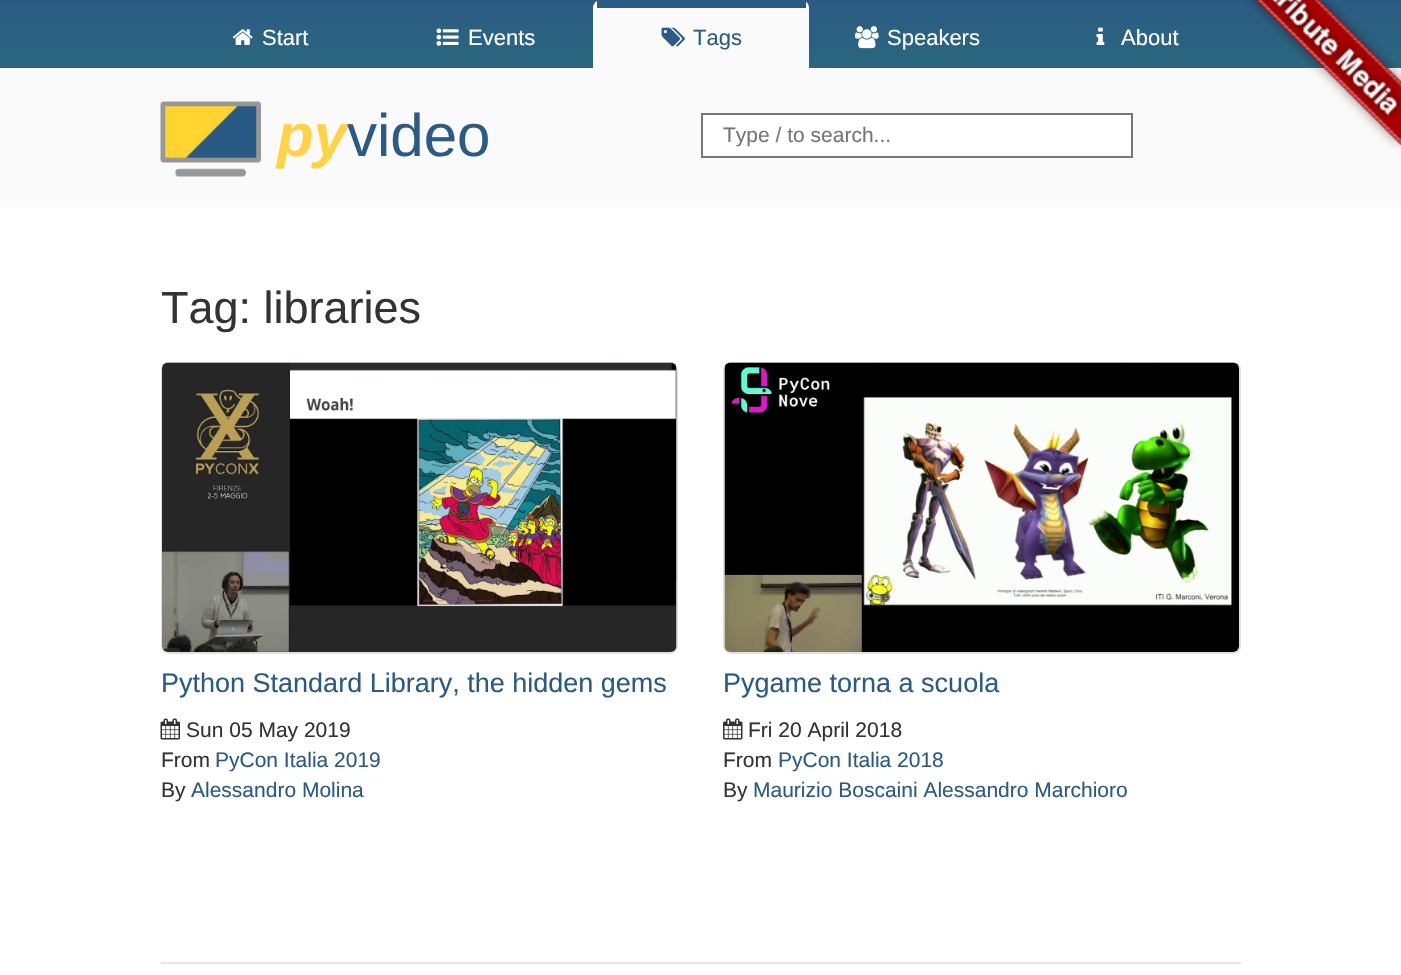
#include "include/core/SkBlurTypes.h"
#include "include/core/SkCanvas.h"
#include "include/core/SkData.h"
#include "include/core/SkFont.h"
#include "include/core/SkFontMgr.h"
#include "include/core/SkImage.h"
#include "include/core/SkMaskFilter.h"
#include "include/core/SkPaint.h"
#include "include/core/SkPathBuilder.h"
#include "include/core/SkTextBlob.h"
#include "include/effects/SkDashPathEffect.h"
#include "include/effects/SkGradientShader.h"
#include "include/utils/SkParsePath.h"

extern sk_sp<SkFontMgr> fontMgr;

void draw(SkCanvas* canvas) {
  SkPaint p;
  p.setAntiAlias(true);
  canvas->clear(SK_ColorWHITE);
  p.setColor(SkColorSetRGB(250, 250, 250));
  canvas->drawRect(SkRect::MakeLTRB(0, 68, 1401, 207), p);
  {
    const SkColor colors[] = {SkColorSetRGB(43, 91, 132), SkColorSetRGB(42, 103, 127)};
    const float stops[] = {0, 1};
    const SkPoint ends[] = {{701, 0}, {701, 68}};
    p.setShader(SkGradientShader::MakeLinear(ends, colors, stops, 2, SkTileMode::kClamp));
    p.setAlpha(255);
  }
  canvas->drawRect(SkRect::MakeLTRB(0, 0, 1401, 68), p);
  canvas->drawImageRect(SkImages::DeferredFromEncodedData(SkData::MakeFromFileName("images/1.png")), SkRect::MakeLTRB(232, 29, 253, 45), SkSamplingOptions());
  canvas->drawImageRect(SkImages::DeferredFromEncodedData(SkData::MakeFromFileName("images/2.png")), SkRect::MakeLTRB(436, 28, 459, 46), SkSamplingOptions());
  p.setShader(nullptr);
  p.setColor(SkColorSetRGB(250, 250, 250));
  canvas->drawPath(SkPathBuilder().moveTo(601, 0).lineTo(801, 0).cubicTo(805.5f, 0, 809, 3.5f, 809, 8).lineTo(809, 68).lineTo(593, 68).lineTo(593, 8).cubicTo(593, 3.5f, 596.5f, 0, 601, 0).close().detach(), p);
  p.setColor(SkColorSetRGB(43, 91, 132));
  canvas->drawRect(SkRect::MakeLTRB(597, 0, 806, 8), p);
  canvas->drawImageRect(SkImages::DeferredFromEncodedData(SkData::MakeFromFileName("images/3.png")), SkRect::MakeLTRB(661, 27, 685, 47), SkSamplingOptions());
  canvas->drawImageRect(SkImages::DeferredFromEncodedData(SkData::MakeFromFileName("images/4.png")), SkRect::MakeLTRB(855, 26, 879, 49), SkSamplingOptions());
  canvas->drawImageRect(SkImages::DeferredFromEncodedData(SkData::MakeFromFileName("images/5.png")), SkRect::MakeLTRB(1096, 27, 1105, 45), SkSamplingOptions());
  canvas->drawImageRect(SkImages::DeferredFromEncodedData(SkData::MakeFromFileName("images/6.png")), SkRect::MakeLTRB(160, 101, 261, 177), SkSamplingOptions());
  p.setColor(SK_ColorWHITE);
  canvas->drawRect(SkRect::MakeLTRB(702, 114, 1132, 157), p);
  p.setStyle(SkPaint::kStroke_Style);
  p.setStrokeWidth(2);
  p.setColor(SkColorSetRGB(118, 118, 118));
  canvas->drawRect(SkRect::MakeLTRB(702, 114, 1132, 157), p);
  canvas->drawImageRect(SkImages::DeferredFromEncodedData(SkData::MakeFromFileName("images/7.png")), SkRect::MakeLTRB(1244, 0, 1401, 149), SkSamplingOptions());
  p.setColor(SkColorSetRGB(224, 224, 224));
  canvas->drawRoundRect(SkRect::MakeLTRB(162, 363, 677, 653), 7, 7, p);
  canvas->drawImageRect(SkImages::DeferredFromEncodedData(SkData::MakeFromFileName("images/8.png")), SkRect::MakeLTRB(162, 362, 677, 652), SkSamplingOptions());
  canvas->drawImageRect(SkImages::DeferredFromEncodedData(SkData::MakeFromFileName("images/9.png")), SkRect::MakeLTRB(160, 718, 180, 740), SkSamplingOptions());
  canvas->drawRoundRect(SkRect::MakeLTRB(724, 363, 1240, 653), 7, 7, p);
  canvas->drawImageRect(SkImages::DeferredFromEncodedData(SkData::MakeFromFileName("images/10.png")), SkRect::MakeLTRB(724, 362, 1239, 652), SkSamplingOptions());
  canvas->drawImageRect(SkImages::DeferredFromEncodedData(SkData::MakeFromFileName("images/11.png")), SkRect::MakeLTRB(723, 718, 743, 740), SkSamplingOptions());
  p.setStyle(SkPaint::kFill_Style);
  p.setColor(SkColorSetRGB(229, 229, 229));
  canvas->drawRect(SkRect::MakeLTRB(161, 962, 1241, 964), p);
  SkFont font1(fontMgr->matchFamilyStyle("Liberation Sans", SkFontStyle::Normal()), 22);
  font1.setSubpixel(true);
  p.setColor(SK_ColorWHITE);
  canvas->drawString("Start", 262, 45, font1, p);
  canvas->drawString("Events", 468, 45, font1, p);
  p.setColor(SkColorSetRGB(43, 91, 132));
  canvas->drawString("Tags", 693, 45, font1, p);
  p.setColor(SK_ColorWHITE);
  canvas->drawString("Speakers", 887, 45, font1, p);
  canvas->drawString("About", 1121, 45, font1, p);
  SkFont font2(fontMgr->matchFamilyStyle("Liberation Sans", SkFontStyle::BoldItalic()), 60);
  font2.setSubpixel(true);
  p.setColor(SkColorSetRGB(255, 211, 67));
  canvas->drawString("py", 277, 156, font2, p);
  SkFont font3(fontMgr->matchFamilyStyle("Liberation Sans", SkFontStyle::Normal()), 60);
  font3.setSubpixel(true);
  p.setColor(SkColorSetRGB(43, 91, 132));
  canvas->drawString("video", 347, 156, font3, p);
  SkFont font4(fontMgr->matchFamilyStyle("Liberation Sans", SkFontStyle::Normal()), 21);
  font4.setSubpixel(true);
  p.setColor(SkColorSetRGB(117, 117, 117));
  canvas->drawString("Type / to search...", 723, 142, font4, p);
  SkFont font5(fontMgr->matchFamilyStyle("Liberation Sans", SkFontStyle::Normal()), 45);
  font5.setSubpixel(true);
  p.setColor(SkColorSetRGB(51, 51, 51));
  canvas->drawString("Tag: libraries", 161, 323, font5, p);
  SkFont font6(fontMgr->matchFamilyStyle("Liberation Sans", SkFontStyle::Normal()), 27);
  font6.setSubpixel(true);
  p.setColor(SkColorSetRGB(43, 91, 132));
  canvas->drawString("Python Standard Library, the hidden gems", 161, 692, font6, p);
  p.setColor(SkColorSetRGB(51, 51, 51));
  canvas->drawString("Sun 05 May 2019", 186, 737, font4, p);
  canvas->drawString("From", 161, 767, font4, p);
  p.setColor(SkColorSetRGB(43, 91, 132));
  canvas->drawString("PyCon Italia 2019", 215, 767, font4, p);
  p.setColor(SkColorSetRGB(51, 51, 51));
  canvas->drawString("By", 161, 797, font4, p);
  p.setColor(SkColorSetRGB(43, 91, 132));
  canvas->drawString("Alessandro Molina", 191, 797, font4, p);
  canvas->drawString("Pygame torna a scuola", 723, 692, font6, p);
  p.setColor(SkColorSetRGB(51, 51, 51));
  canvas->drawString("Fri 20 April 2018", 748, 737, font4, p);
  canvas->drawString("From", 723, 767, font4, p);
  p.setColor(SkColorSetRGB(43, 91, 132));
  canvas->drawString("PyCon Italia 2018", 778, 767, font4, p);
  p.setColor(SkColorSetRGB(51, 51, 51));
  canvas->drawString("By", 723, 797, font4, p);
  p.setColor(SkColorSetRGB(43, 91, 132));
  canvas->drawString("Maurizio Boscaini Alessandro Marchioro", 753, 797, font4, p);
}
